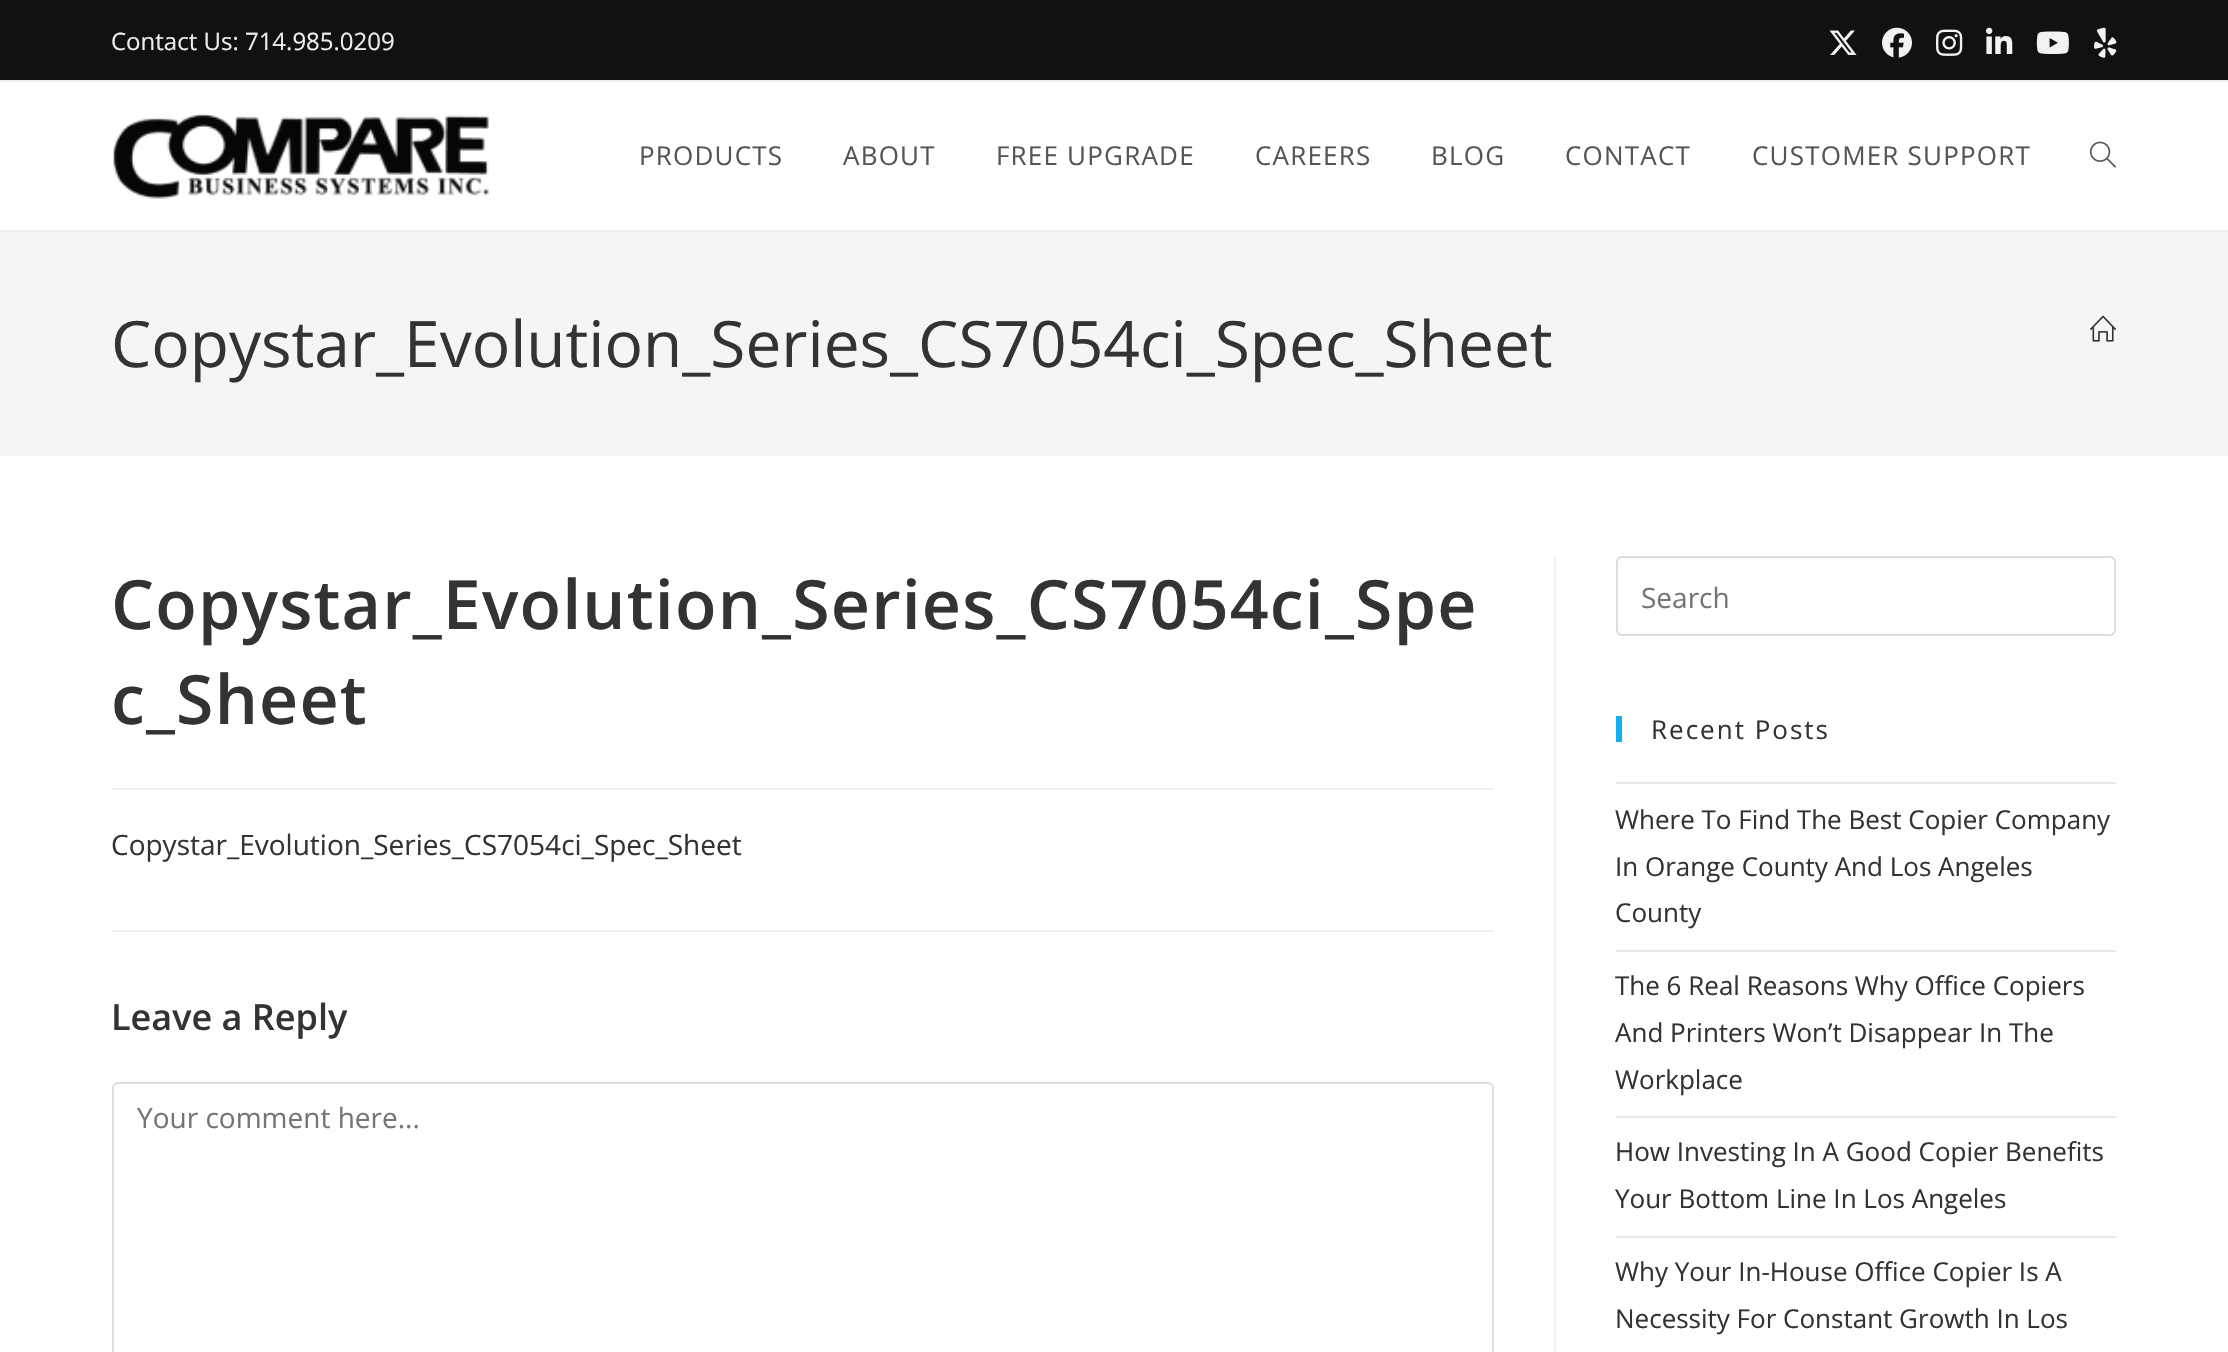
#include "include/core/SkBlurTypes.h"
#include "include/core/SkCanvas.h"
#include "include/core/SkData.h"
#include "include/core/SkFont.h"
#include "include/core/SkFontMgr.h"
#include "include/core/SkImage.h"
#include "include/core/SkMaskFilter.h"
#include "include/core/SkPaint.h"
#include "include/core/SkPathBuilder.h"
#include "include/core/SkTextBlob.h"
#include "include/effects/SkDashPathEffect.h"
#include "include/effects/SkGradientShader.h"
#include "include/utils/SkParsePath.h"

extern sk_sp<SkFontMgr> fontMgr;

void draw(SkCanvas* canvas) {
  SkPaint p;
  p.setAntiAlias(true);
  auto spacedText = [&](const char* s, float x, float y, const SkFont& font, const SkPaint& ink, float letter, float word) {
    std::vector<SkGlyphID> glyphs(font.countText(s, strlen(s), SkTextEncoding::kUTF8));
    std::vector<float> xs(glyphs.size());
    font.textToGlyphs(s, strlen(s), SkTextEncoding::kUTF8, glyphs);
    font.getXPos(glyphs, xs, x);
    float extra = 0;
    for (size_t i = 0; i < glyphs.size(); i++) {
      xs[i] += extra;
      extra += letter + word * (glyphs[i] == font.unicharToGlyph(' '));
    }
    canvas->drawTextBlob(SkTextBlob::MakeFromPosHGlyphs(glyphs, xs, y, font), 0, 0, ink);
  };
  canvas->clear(SK_ColorWHITE);
  p.setColor(SkColorSetRGB(17, 17, 17));
  canvas->drawRect(SkRect::MakeLTRB(0, 0, 2228, 80), p);
  p.setColor(SkColorSetRGB(241, 241, 241));
  canvas->drawRect(SkRect::MakeLTRB(0, 80, 2228, 82), p);
  canvas->drawImageRect(SkImages::DeferredFromEncodedData(SkData::MakeFromFileName("images/1.png")), SkRect::MakeLTRB(1829, 30, 1857, 55), SkSamplingOptions());
  canvas->drawImageRect(SkImages::DeferredFromEncodedData(SkData::MakeFromFileName("images/2.png")), SkRect::MakeLTRB(1882, 27, 1912, 58), SkSamplingOptions());
  canvas->drawImageRect(SkImages::DeferredFromEncodedData(SkData::MakeFromFileName("images/3.png")), SkRect::MakeLTRB(1936, 29, 1963, 56), SkSamplingOptions());
  canvas->drawImageRect(SkImages::DeferredFromEncodedData(SkData::MakeFromFileName("images/4.png")), SkRect::MakeLTRB(1986, 27, 2013, 54), SkSamplingOptions());
  canvas->drawImageRect(SkImages::DeferredFromEncodedData(SkData::MakeFromFileName("images/5.png")), SkRect::MakeLTRB(2036, 31, 2069, 54), SkSamplingOptions());
  canvas->drawImageRect(SkImages::DeferredFromEncodedData(SkData::MakeFromFileName("images/6.png")), SkRect::MakeLTRB(2094, 27, 2117, 58), SkSamplingOptions());
  canvas->drawRect(SkRect::MakeLTRB(0, 230, 2228, 232), p);
  canvas->drawImageRect(SkImages::DeferredFromEncodedData(SkData::MakeFromFileName("images/7.png")), SkRect::MakeLTRB(113, 113, 489, 199), SkSamplingOptions());
  canvas->drawImageRect(SkImages::DeferredFromEncodedData(SkData::MakeFromFileName("images/8.png")), SkRect::MakeLTRB(2089, 141, 2116, 168), SkSamplingOptions());
  p.setColor(SkColorSetRGB(245, 245, 245));
  canvas->drawRect(SkRect::MakeLTRB(0, 232, 2228, 456), p);
  canvas->drawImageRect(SkImages::DeferredFromEncodedData(SkData::MakeFromFileName("images/9.png")), SkRect::MakeLTRB(2090, 315, 2116, 342), SkSamplingOptions());
  p.setColor(SkColorSetRGB(241, 241, 241));
  canvas->drawRect(SkRect::MakeLTRB(1554, 556, 1556, 1352), p);
  canvas->drawRect(SkRect::MakeLTRB(112, 788, 1494, 790), p);
  canvas->drawRect(SkRect::MakeLTRB(112, 930, 1494, 932), p);
  p.setStyle(SkPaint::kStroke_Style);
  p.setStrokeWidth(2);
  p.setColor(SkColorSetRGB(221, 221, 221));
  canvas->drawRoundRect(SkRect::MakeLTRB(113, 1083, 1493, 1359), 5, 5, p);
  canvas->drawRoundRect(SkRect::MakeLTRB(1617, 557, 2115, 635), 5, 5, p);
  p.setStyle(SkPaint::kFill_Style);
  p.setColor(SkColorSetRGB(19, 175, 240));
  canvas->drawRect(SkRect::MakeLTRB(1616, 716, 1622, 742), p);
  p.setColor(SkColorSetRGB(233, 233, 233));
  canvas->drawRect(SkRect::MakeLTRB(1616, 782, 2116, 784), p);
  canvas->drawRect(SkRect::MakeLTRB(1616, 950, 2116, 952), p);
  canvas->drawRect(SkRect::MakeLTRB(1616, 1116, 2116, 1118), p);
  canvas->drawRect(SkRect::MakeLTRB(1616, 1236, 2116, 1238), p);
  SkFont font1(fontMgr->matchFamilyStyle("Open Sans", SkFontStyle::Normal()), 24);
  font1.setSubpixel(true);
  p.setColor(SkColorSetRGB(237, 237, 237));
  canvas->drawString("Contact Us: 714.985.0209", 111, 50, font1, p);
  SkFont font2(fontMgr->matchFamilyStyle("Open Sans", SkFontStyle::Normal()), 26);
  font2.setSubpixel(true);
  p.setColor(SkColorSetRGB(85, 85, 85));
  spacedText("PRODUCTS", 639, 165, font2, p, 1.2f, 0);
  spacedText("ABOUT", 843, 165, font2, p, 1.2f, 0);
  spacedText("FREE UPGRADE", 996, 165, font2, p, 1.2f, 0);
  spacedText("CAREERS", 1255, 165, font2, p, 1.2f, 0);
  spacedText("BLOG", 1431, 165, font2, p, 1.2f, 0);
  spacedText("CONTACT", 1565, 165, font2, p, 1.2f, 0);
  spacedText("CUSTOMER SUPPORT", 1752, 165, font2, p, 1.2f, 0);
  SkFont font3(fontMgr->matchFamilyStyle("Open Sans", SkFontStyle::Normal()), 64);
  font3.setSubpixel(true);
  p.setColor(SkColorSetRGB(51, 51, 51));
  canvas->drawString("Copystar_Evolution_Series_CS7054ci_Spec_Sheet", 111, 367, font3, p);
  SkFont font4(fontMgr->matchFamilyStyle("Open Sans", SkFontStyle(600, SkFontStyle::kNormal_Width, SkFontStyle::kUpright_Slant)), 68);
  font4.setSubpixel(true);
  spacedText("Copystar_Evolution_Series_CS7054ci_Spe", 111, 629, font4, p, 1.2f, 0);
  spacedText("c_Sheet", 111, 724, font4, p, 1.2f, 0);
  SkFont font5(fontMgr->matchFamilyStyle("Open Sans", SkFontStyle::Normal()), 28);
  font5.setSubpixel(true);
  canvas->drawString("Copystar_Evolution_Series_CS7054ci_Spec_Sheet", 111, 855, font5, p);
  SkFont font6(fontMgr->matchFamilyStyle("Open Sans", SkFontStyle(600, SkFontStyle::kNormal_Width, SkFontStyle::kUpright_Slant)), 36);
  font6.setSubpixel(true);
  canvas->drawString("Leave a Reply", 111, 1030, font6, p);
  p.setColor(SkColorSetRGB(117, 117, 117));
  canvas->drawString("Your comment here...", 137, 1128, font5, p);
  canvas->drawString("Search", 1641, 608, font5, p);
  p.setColor(SkColorSetRGB(51, 51, 51));
  spacedText("Recent Posts", 1651, 739, font2, p, 2, 0);
  canvas->drawString("Where To Find The Best Copier Company", 1615, 829, font2, p);
  canvas->drawString("In Orange County And Los Angeles", 1615, 876, font2, p);
  canvas->drawString("County", 1615, 922, font2, p);
  canvas->drawString("The 6 Real Reasons Why Office Copiers", 1615, 995, font2, p);
  canvas->drawString("And Printers Won’t Disappear In The", 1615, 1042, font2, p);
  canvas->drawString("Workplace", 1615, 1089, font2, p);
  canvas->drawString("How Investing In A Good Copier Benefits", 1615, 1161, font2, p);
  canvas->drawString("Your Bottom Line In Los Angeles", 1615, 1208, font2, p);
  canvas->drawString("Why Your In-House Office Copier Is A", 1615, 1281, font2, p);
  canvas->drawString("Necessity For Constant Growth In Los", 1615, 1328, font2, p);
}
